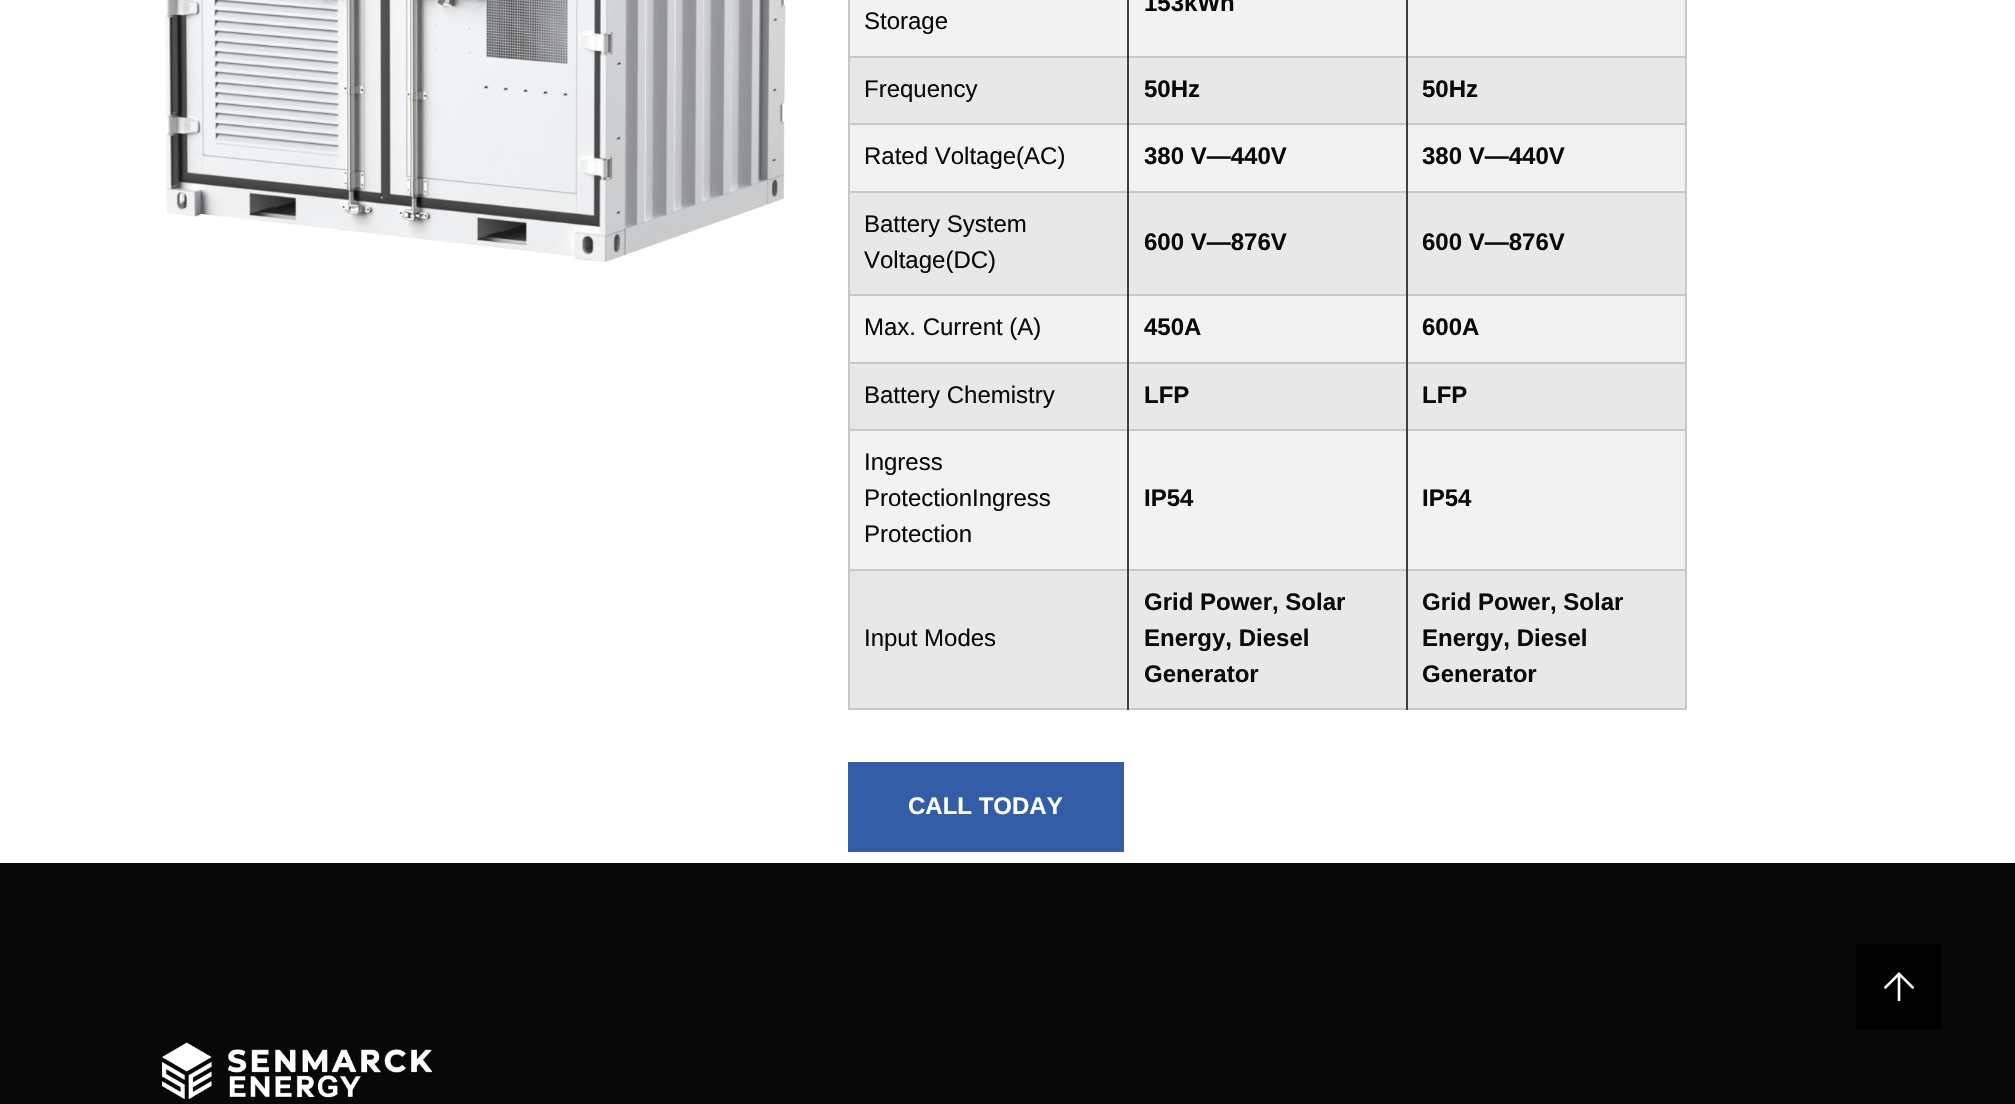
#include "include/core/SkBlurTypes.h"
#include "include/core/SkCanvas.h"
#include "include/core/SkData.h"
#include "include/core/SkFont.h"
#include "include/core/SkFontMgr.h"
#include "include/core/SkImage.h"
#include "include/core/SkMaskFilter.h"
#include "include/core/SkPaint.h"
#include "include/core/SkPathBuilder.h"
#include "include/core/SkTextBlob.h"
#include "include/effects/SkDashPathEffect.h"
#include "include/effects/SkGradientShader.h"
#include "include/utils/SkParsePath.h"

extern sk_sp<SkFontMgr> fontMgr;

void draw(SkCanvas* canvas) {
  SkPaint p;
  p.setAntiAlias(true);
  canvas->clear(SK_ColorWHITE);
  canvas->drawImageRect(SkImages::DeferredFromEncodedData(SkData::MakeFromFileName("images/1.png")), SkRect::MakeLTRB(165, 0, 786, 262), SkSamplingOptions());
  p.setColor(SkColorSetRGB(200, 200, 200));
  canvas->drawRect(SkRect::MakeLTRB(850, 708, 1685, 710), p);
  canvas->drawRect(SkRect::MakeLTRB(1685, 0, 1687, 710), p);
  canvas->drawRect(SkRect::MakeLTRB(848, 0, 850, 710), p);
  canvas->drawRect(SkRect::MakeLTRB(848, 56, 1686, 58), p);
  p.setColor(SkColorSetRGB(242, 242, 242));
  canvas->drawRect(SkRect::MakeLTRB(850, 0, 1127, 56), p);
  canvas->drawRect(SkRect::MakeLTRB(1129, 0, 1406, 56), p);
  canvas->drawRect(SkRect::MakeLTRB(1408, 0, 1685, 56), p);
  p.setColor(SkColorSetRGB(200, 200, 200));
  canvas->drawRect(SkRect::MakeLTRB(848, 123, 1686, 125), p);
  p.setColor(SkColorSetRGB(232, 232, 232));
  canvas->drawRect(SkRect::MakeLTRB(850, 58, 1127, 123), p);
  canvas->drawRect(SkRect::MakeLTRB(1129, 58, 1406, 123), p);
  canvas->drawRect(SkRect::MakeLTRB(1408, 58, 1685, 123), p);
  p.setColor(SkColorSetRGB(200, 200, 200));
  canvas->drawRect(SkRect::MakeLTRB(848, 191, 1686, 193), p);
  p.setColor(SkColorSetRGB(242, 242, 242));
  canvas->drawRect(SkRect::MakeLTRB(850, 125, 1127, 191), p);
  canvas->drawRect(SkRect::MakeLTRB(1129, 125, 1406, 191), p);
  canvas->drawRect(SkRect::MakeLTRB(1408, 125, 1685, 191), p);
  p.setColor(SkColorSetRGB(200, 200, 200));
  canvas->drawRect(SkRect::MakeLTRB(848, 294, 1686, 296), p);
  p.setColor(SkColorSetRGB(232, 232, 232));
  canvas->drawRect(SkRect::MakeLTRB(850, 193, 1127, 294), p);
  canvas->drawRect(SkRect::MakeLTRB(1129, 193, 1406, 294), p);
  canvas->drawRect(SkRect::MakeLTRB(1408, 193, 1685, 294), p);
  p.setColor(SkColorSetRGB(200, 200, 200));
  canvas->drawRect(SkRect::MakeLTRB(848, 362, 1686, 364), p);
  p.setColor(SkColorSetRGB(242, 242, 242));
  canvas->drawRect(SkRect::MakeLTRB(850, 296, 1127, 362), p);
  canvas->drawRect(SkRect::MakeLTRB(1129, 296, 1406, 362), p);
  canvas->drawRect(SkRect::MakeLTRB(1408, 296, 1685, 362), p);
  p.setColor(SkColorSetRGB(200, 200, 200));
  canvas->drawRect(SkRect::MakeLTRB(848, 429, 1686, 431), p);
  p.setColor(SkColorSetRGB(232, 232, 232));
  canvas->drawRect(SkRect::MakeLTRB(850, 364, 1127, 429), p);
  canvas->drawRect(SkRect::MakeLTRB(1129, 364, 1406, 429), p);
  canvas->drawRect(SkRect::MakeLTRB(1408, 364, 1685, 429), p);
  p.setColor(SkColorSetRGB(200, 200, 200));
  canvas->drawRect(SkRect::MakeLTRB(848, 569, 1686, 571), p);
  p.setColor(SkColorSetRGB(242, 242, 242));
  canvas->drawRect(SkRect::MakeLTRB(850, 431, 1127, 569), p);
  canvas->drawRect(SkRect::MakeLTRB(1129, 431, 1406, 569), p);
  canvas->drawRect(SkRect::MakeLTRB(1408, 431, 1685, 569), p);
  p.setColor(SkColorSetRGB(232, 232, 232));
  canvas->drawRect(SkRect::MakeLTRB(850, 571, 1127, 708), p);
  p.setColor(SkColorSetRGB(64, 64, 64));
  canvas->drawRect(SkRect::MakeLTRB(1127, 0, 1129, 710), p);
  p.setColor(SkColorSetRGB(232, 232, 232));
  canvas->drawRect(SkRect::MakeLTRB(1129, 571, 1406, 708), p);
  p.setColor(SkColorSetRGB(64, 64, 64));
  canvas->drawRect(SkRect::MakeLTRB(1406, 0, 1408, 710), p);
  p.setColor(SkColorSetRGB(232, 232, 232));
  canvas->drawRect(SkRect::MakeLTRB(1408, 571, 1685, 708), p);
  p.setColor(SkColorSetRGB(51, 93, 167));
  canvas->drawRect(SkRect::MakeLTRB(848, 762, 1124, 852), p);
  p.setColor(SkColorSetRGB(8, 8, 8));
  canvas->drawRect(SkRect::MakeLTRB(0, 863, 2015, 1104), p);
  p.setColor(SK_ColorBLACK);
  canvas->drawRect(SkRect::MakeLTRB(1856, 944, 1941, 1029), p);
  canvas->drawImageRect(SkImages::DeferredFromEncodedData(SkData::MakeFromFileName("images/2.png")), SkRect::MakeLTRB(1884, 972, 1914, 1001), SkSamplingOptions());
  canvas->drawImageRect(SkImages::DeferredFromEncodedData(SkData::MakeFromFileName("images/3.png")), SkRect::MakeLTRB(162, 1042, 432, 1099), SkSamplingOptions());
  SkFont font1(fontMgr->matchFamilyStyle("Liberation Sans", SkFontStyle::Normal()), 24);
  font1.setSubpixel(true);
  p.setColor(SkColorSetRGB(10, 10, 10));
  canvas->drawString("Storage", 864, 29, font1, p);
  SkFont font2(fontMgr->matchFamilyStyle("Liberation Sans", SkFontStyle::Bold()), 24);
  font2.setSubpixel(true);
  canvas->drawString("153kWh", 1144, 11, font2, p);
  canvas->drawString("Frequency", 864, 97, font1, p);
  canvas->drawString("50Hz", 1144, 97, font2, p);
  canvas->drawString("50Hz", 1422, 97, font2, p);
  canvas->drawString("Rated Voltage(AC)", 864, 164, font1, p);
  canvas->drawString("380 V—440V", 1144, 164, font2, p);
  canvas->drawString("380 V—440V", 1422, 164, font2, p);
  canvas->drawString("Battery System", 864, 232, font1, p);
  canvas->drawString("Voltage(DC)", 864, 268, font1, p);
  canvas->drawString("600 V—876V", 1144, 250, font2, p);
  canvas->drawString("600 V—876V", 1422, 250, font2, p);
  canvas->drawString("Max. Current (A)", 864, 335, font1, p);
  canvas->drawString("450A", 1144, 335, font2, p);
  canvas->drawString("600A", 1422, 335, font2, p);
  canvas->drawString("Battery Chemistry", 864, 403, font1, p);
  canvas->drawString("LFP", 1144, 403, font2, p);
  canvas->drawString("LFP", 1422, 403, font2, p);
  canvas->drawString("Ingress", 864, 470, font1, p);
  canvas->drawString("ProtectionIngress", 864, 506, font1, p);
  canvas->drawString("Protection", 864, 542, font1, p);
  canvas->drawString("IP54", 1144, 506, font2, p);
  canvas->drawString("IP54", 1422, 506, font2, p);
  canvas->drawString("Input Modes", 864, 646, font1, p);
  canvas->drawString("Grid Power, Solar", 1144, 610, font2, p);
  canvas->drawString("Energy, Diesel", 1144, 646, font2, p);
  canvas->drawString("Generator", 1144, 682, font2, p);
  canvas->drawString("Grid Power, Solar", 1422, 610, font2, p);
  canvas->drawString("Energy, Diesel", 1422, 646, font2, p);
  canvas->drawString("Generator", 1422, 682, font2, p);
  p.setColor(SK_ColorWHITE);
  canvas->drawString("CALL TODAY", 908, 814, font2, p);
}
